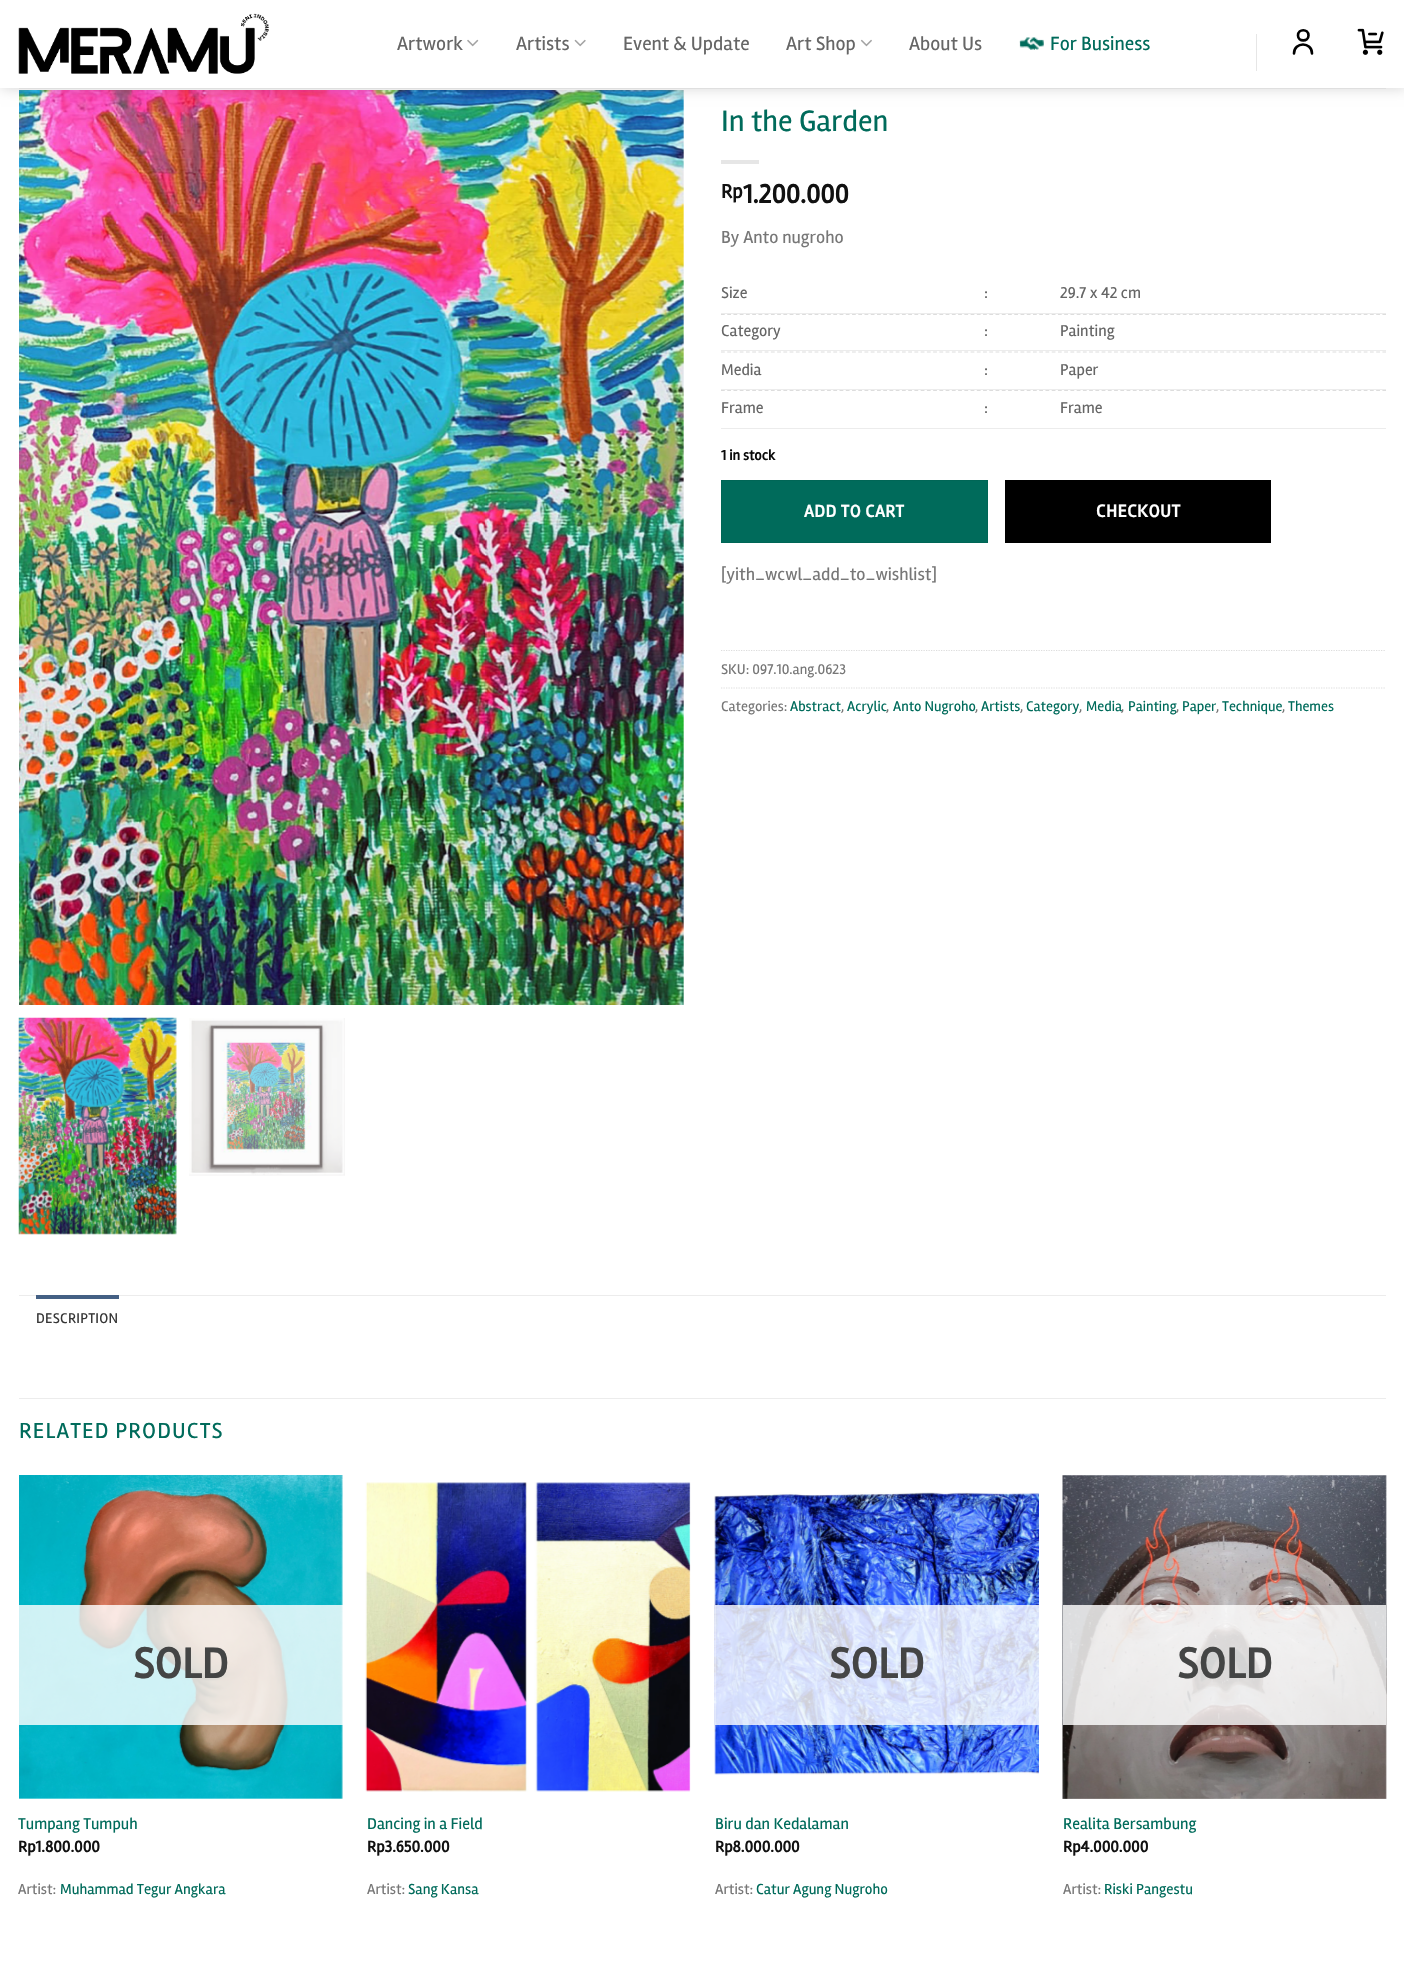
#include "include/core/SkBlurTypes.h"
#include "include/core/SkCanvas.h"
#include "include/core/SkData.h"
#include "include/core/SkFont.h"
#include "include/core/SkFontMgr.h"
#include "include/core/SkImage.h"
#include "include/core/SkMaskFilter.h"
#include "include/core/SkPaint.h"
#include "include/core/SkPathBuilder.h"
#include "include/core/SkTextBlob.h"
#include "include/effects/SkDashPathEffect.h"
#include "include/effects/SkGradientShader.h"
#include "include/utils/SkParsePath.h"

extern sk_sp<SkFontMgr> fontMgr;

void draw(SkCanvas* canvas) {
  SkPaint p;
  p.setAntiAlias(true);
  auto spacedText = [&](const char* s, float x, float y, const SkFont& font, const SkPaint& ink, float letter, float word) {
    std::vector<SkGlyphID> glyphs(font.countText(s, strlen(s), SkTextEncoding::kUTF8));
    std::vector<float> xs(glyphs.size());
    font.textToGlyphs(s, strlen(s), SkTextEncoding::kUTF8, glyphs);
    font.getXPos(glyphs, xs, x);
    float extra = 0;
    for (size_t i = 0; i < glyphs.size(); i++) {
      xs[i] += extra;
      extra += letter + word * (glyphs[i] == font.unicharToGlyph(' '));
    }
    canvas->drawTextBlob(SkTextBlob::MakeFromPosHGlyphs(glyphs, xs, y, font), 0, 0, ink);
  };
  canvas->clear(SK_ColorWHITE);
  canvas->drawImageRect(SkImages::DeferredFromEncodedData(SkData::MakeFromFileName("images/7.png")), SkRect::MakeLTRB(19, 90, 684, 1005), SkSamplingOptions());
  p.setColor(SkColorSetARGB(38, 0, 0, 0));
  p.setMaskFilter(SkMaskFilter::MakeBlur(kNormal_SkBlurStyle, 6));
  canvas->drawRect(SkRect::MakeLTRB(1, 1, 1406, 89), p);
  p.setMaskFilter(nullptr);
  p.setColor(SK_ColorWHITE);
  canvas->drawRect(SkRect::MakeLTRB(0, 0, 1404, 88), p);
  canvas->drawImageRect(SkImages::DeferredFromEncodedData(SkData::MakeFromFileName("images/1.png")), SkRect::MakeLTRB(18, 13, 269, 74), SkSamplingOptions());
  canvas->drawImageRect(SkImages::DeferredFromEncodedData(SkData::MakeFromFileName("images/2.png")), SkRect::MakeLTRB(467, 39, 479, 47), SkSamplingOptions());
  canvas->drawImageRect(SkImages::DeferredFromEncodedData(SkData::MakeFromFileName("images/3.png")), SkRect::MakeLTRB(574, 39, 586, 47), SkSamplingOptions());
  canvas->drawImageRect(SkImages::DeferredFromEncodedData(SkData::MakeFromFileName("images/4.png")), SkRect::MakeLTRB(860, 39, 872, 47), SkSamplingOptions());
  canvas->drawImageRect(SkImages::DeferredFromEncodedData(SkData::MakeFromFileName("images/5.png")), SkRect::MakeLTRB(1019, 37, 1044, 50), SkSamplingOptions());
  p.setColor(SkColorSetRGB(230, 230, 230));
  canvas->drawRect(SkRect::MakeLTRB(1256, 34, 1257, 71), p);
  p.setStyle(SkPaint::kStroke_Style);
  p.setStrokeWidth(2.6f);
  p.setStrokeCap(SkPaint::kRound_Cap);
  p.setStrokeJoin(SkPaint::kRound_Join);
  p.setColor(SK_ColorBLACK);
  canvas->drawPath(SkPathBuilder().moveTo(1294, 53.5f).cubicTo(1294, 41.5f, 1312, 41.5f, 1312, 53.5f).moveTo(1308.5f, 35.5f).cubicTo(1308.5f, 42, 1298, 42, 1298, 35.5f).cubicTo(1298, 28.5f, 1308.5f, 28.5f, 1308.5f, 35.5f).close().detach(), p);
  canvas->drawImageRect(SkImages::DeferredFromEncodedData(SkData::MakeFromFileName("images/6.png")), SkRect::MakeLTRB(1357, 28, 1384, 55), SkSamplingOptions());
  p.setStyle(SkPaint::kFill_Style);
  p.setColor(SkColorSetRGB(223, 223, 223));
  canvas->drawRect(SkRect::MakeLTRB(19, 88, 1386, 89), p);
  canvas->drawImageRect(SkImages::DeferredFromEncodedData(SkData::MakeFromFileName("images/8.png")), SkRect::MakeLTRB(18, 1017, 177, 1235), SkSamplingOptions());
  canvas->drawImageRect(SkImages::DeferredFromEncodedData(SkData::MakeFromFileName("images/9.png")), SkRect::MakeLTRB(189, 1018, 345, 1176), SkSamplingOptions());
  p.setColor(SkColorSetRGB(230, 230, 230));
  canvas->drawRect(SkRect::MakeLTRB(721, 160, 759, 164), p);
  p.setColor(SkColorSetRGB(236, 236, 236));
  canvas->drawRect(SkRect::MakeLTRB(721, 313, 1386, 314), p);
  p.setStyle(SkPaint::kStroke_Style);
  p.setStrokeWidth(1.2f);
  p.setStrokeCap(SkPaint::kButt_Cap);
  p.setStrokeJoin(SkPaint::kMiter_Join);
  p.setColor(SkColorSetRGB(221, 221, 221));
  p.setPathEffect(SkDashPathEffect::Make({{3.75f, 2.49f}}, 0));
  canvas->drawPath(SkPathBuilder().moveTo(721, 314.5f).lineTo(1386, 314.5f).detach(), p);
  p.setPathEffect(nullptr);
  p.setStyle(SkPaint::kFill_Style);
  p.setColor(SkColorSetRGB(236, 236, 236));
  canvas->drawRect(SkRect::MakeLTRB(721, 350, 1386, 351), p);
  p.setStyle(SkPaint::kStroke_Style);
  p.setColor(SkColorSetRGB(221, 221, 221));
  p.setPathEffect(SkDashPathEffect::Make({{3.75f, 2.49f}}, 0));
  canvas->drawPath(SkPathBuilder().moveTo(721, 352).lineTo(1386, 352).detach(), p);
  p.setPathEffect(nullptr);
  p.setStyle(SkPaint::kFill_Style);
  p.setColor(SkColorSetRGB(236, 236, 236));
  canvas->drawRect(SkRect::MakeLTRB(721, 389, 1386, 390), p);
  p.setStyle(SkPaint::kStroke_Style);
  p.setColor(SkColorSetRGB(221, 221, 221));
  p.setPathEffect(SkDashPathEffect::Make({{3.75f, 2.49f}}, 0));
  canvas->drawPath(SkPathBuilder().moveTo(721, 390.5f).lineTo(1386, 390.5f).detach(), p);
  p.setPathEffect(nullptr);
  p.setStyle(SkPaint::kFill_Style);
  p.setColor(SkColorSetRGB(236, 236, 236));
  canvas->drawRect(SkRect::MakeLTRB(721, 428, 1386, 429), p);
  p.setColor(SkColorSetRGB(0, 107, 91));
  canvas->drawRect(SkRect::MakeLTRB(721.5f, 480.5f, 987.5f, 542.5f), p);
  p.setStyle(SkPaint::kStroke_Style);
  p.setStrokeWidth(1);
  p.setColor(SkColorSetRGB(0, 102, 86));
  canvas->drawRect(SkRect::MakeLTRB(721.5f, 480.5f, 987.5f, 542.5f), p);
  p.setStyle(SkPaint::kFill_Style);
  p.setColor(SK_ColorBLACK);
  canvas->drawRect(SkRect::MakeLTRB(1005, 480, 1271, 543), p);
  p.setStyle(SkPaint::kStroke_Style);
  p.setStrokeWidth(1.2f);
  p.setColor(SkColorSetRGB(221, 221, 221));
  p.setPathEffect(SkDashPathEffect::Make({{1.25f, 1.25f}}, 0));
  canvas->drawPath(SkPathBuilder().moveTo(721, 650.5f).lineTo(1386, 650.5f).detach(), p);
  p.setPathEffect(nullptr);
  p.setPathEffect(SkDashPathEffect::Make({{1.25f, 1.25f}}, 0));
  canvas->drawPath(SkPathBuilder().moveTo(721, 688).lineTo(1386, 688).detach(), p);
  p.setPathEffect(nullptr);
  p.setStyle(SkPaint::kFill_Style);
  p.setColor(SkColorSetRGB(236, 236, 236));
  canvas->drawRect(SkRect::MakeLTRB(19, 1295, 1386, 1296), p);
  p.setColor(SkColorSetRGB(68, 96, 132));
  canvas->drawRect(SkRect::MakeLTRB(36, 1295, 119, 1299), p);
  p.setColor(SkColorSetRGB(236, 236, 236));
  canvas->drawRect(SkRect::MakeLTRB(19, 1398, 1386, 1399), p);
  canvas->drawImageRect(SkImages::DeferredFromEncodedData(SkData::MakeFromFileName("images/10.png")), SkRect::MakeLTRB(19, 1475, 343, 1799), SkSamplingOptions());
  p.setColor(SkColorSetARGB(207, 255, 255, 255));
  canvas->drawRect(SkRect::MakeLTRB(19, 1605, 343, 1725), p);
  canvas->drawImageRect(SkImages::DeferredFromEncodedData(SkData::MakeFromFileName("images/11.png")), SkRect::MakeLTRB(365, 1482, 691, 1792), SkSamplingOptions());
  canvas->drawImageRect(SkImages::DeferredFromEncodedData(SkData::MakeFromFileName("images/12.png")), SkRect::MakeLTRB(714, 1492, 1039, 1775), SkSamplingOptions());
  canvas->drawRect(SkRect::MakeLTRB(715, 1605, 1039, 1725), p);
  canvas->drawImageRect(SkImages::DeferredFromEncodedData(SkData::MakeFromFileName("images/13.png")), SkRect::MakeLTRB(1062, 1475, 1387, 1799), SkSamplingOptions());
  canvas->drawRect(SkRect::MakeLTRB(1063, 1605, 1386, 1725), p);
  SkFont font1(fontMgr->matchFamilyStyle("Rambla", SkFontStyle::Normal()), 19.75f);
  font1.setSubpixel(true);
  p.setColor(SkColorSetRGB(102, 102, 102));
  canvas->drawString("Artwork", 397, 50, font1, p);
  canvas->drawString("Artists", 516, 50, font1, p);
  canvas->drawString("Event & Update", 623, 50, font1, p);
  canvas->drawString("Art Shop", 786, 50, font1, p);
  canvas->drawString("About Us", 909, 50, font1, p);
  p.setColor(SkColorSetRGB(0, 107, 91));
  canvas->drawString("For Business", 1050, 50, font1, p);
  SkFont font2(fontMgr->matchFamilyStyle("Rambla", SkFontStyle::Normal()), 30.5f);
  font2.setSubpixel(true);
  canvas->drawString("In the Garden", 721, 131, font2, p);
  SkFont font3(fontMgr->matchFamilyStyle("Rambla", SkFontStyle::Bold()), 20);
  font3.setSubpixel(true);
  p.setColor(SkColorSetRGB(17, 17, 17));
  canvas->drawString("Rp", 721, 198, font3, p);
  SkFont font4(fontMgr->matchFamilyStyle("Rambla", SkFontStyle::Bold()), 27);
  font4.setSubpixel(true);
  canvas->drawString("1.200.000", 743, 203, font4, p);
  SkFont font5(fontMgr->matchFamilyStyle("Rambla", SkFontStyle::Normal()), 18);
  font5.setSubpixel(true);
  p.setColor(SkColorSetRGB(119, 119, 119));
  canvas->drawString("By Anto nugroho", 721, 243, font5, p);
  SkFont font6(fontMgr->matchFamilyStyle("Rambla", SkFontStyle::Normal()), 16.25f);
  font6.setSubpixel(true);
  p.setColor(SkColorSetRGB(102, 102, 102));
  canvas->drawString("Size", 721, 298, font6, p);
  canvas->drawString(":", 984, 298, font6, p);
  canvas->drawString("29.7 x 42 cm", 1060, 298, font6, p);
  canvas->drawString("Category", 721, 336, font6, p);
  canvas->drawString(":", 984, 336, font6, p);
  canvas->drawString("Painting", 1060, 336, font6, p);
  canvas->drawString("Media", 721, 375, font6, p);
  canvas->drawString(":", 984, 375, font6, p);
  canvas->drawString("Paper", 1060, 375, font6, p);
  canvas->drawString("Frame", 721, 413, font6, p);
  canvas->drawString(":", 984, 413, font6, p);
  canvas->drawString("Frame", 1060, 413, font6, p);
  SkFont font7(fontMgr->matchFamilyStyle("Rambla", SkFontStyle::Bold()), 14.5f);
  font7.setSubpixel(true);
  p.setColor(SkColorSetRGB(10, 10, 10));
  canvas->drawString("1 in stock", 721, 460, font7, p);
  SkFont font8(fontMgr->matchFamilyStyle("Rambla", SkFontStyle::Bold()), 17.5f);
  font8.setSubpixel(true);
  p.setColor(SK_ColorWHITE);
  spacedText("ADD TO CART", 804, 517, font8, p, 0.5f, 0);
  SkFont font9(fontMgr->matchFamilyStyle("Rambla", SkFontStyle::Bold()), 18);
  font9.setSubpixel(true);
  spacedText("CHECKOUT", 1096, 517, font9, p, 0.5f, 0);
  p.setColor(SkColorSetRGB(119, 119, 119));
  canvas->drawString("[yith_wcwl_add_to_wishlist]", 721, 580, font5, p);
  SkFont font10(fontMgr->matchFamilyStyle("Rambla", SkFontStyle::Normal()), 14.5f);
  font10.setSubpixel(true);
  canvas->drawString("SKU: 097.10.ang.0623", 721, 674, font10, p);
  canvas->drawString("Categories:", 721, 711, font10, p);
  p.setColor(SkColorSetRGB(0, 107, 91));
  canvas->drawString("Abstract", 790, 711, font10, p);
  p.setColor(SkColorSetRGB(119, 119, 119));
  canvas->drawString(",", 841, 711, font10, p);
  p.setColor(SkColorSetRGB(0, 107, 91));
  canvas->drawString("Acrylic", 847, 711, font10, p);
  p.setColor(SkColorSetRGB(119, 119, 119));
  canvas->drawString(",", 886, 711, font10, p);
  p.setColor(SkColorSetRGB(0, 107, 91));
  canvas->drawString("Anto Nugroho", 893, 711, font10, p);
  p.setColor(SkColorSetRGB(119, 119, 119));
  canvas->drawString(",", 975, 711, font10, p);
  p.setColor(SkColorSetRGB(0, 107, 91));
  canvas->drawString("Artists", 981, 711, font10, p);
  p.setColor(SkColorSetRGB(119, 119, 119));
  canvas->drawString(",", 1020, 711, font10, p);
  p.setColor(SkColorSetRGB(0, 107, 91));
  canvas->drawString("Category", 1026, 711, font10, p);
  p.setColor(SkColorSetRGB(119, 119, 119));
  canvas->drawString(",", 1079, 711, font10, p);
  p.setColor(SkColorSetRGB(0, 107, 91));
  canvas->drawString("Media", 1086, 711, font10, p);
  p.setColor(SkColorSetRGB(119, 119, 119));
  canvas->drawString(",", 1121, 711, font10, p);
  p.setColor(SkColorSetRGB(0, 107, 91));
  canvas->drawString("Painting", 1128, 711, font10, p);
  p.setColor(SkColorSetRGB(119, 119, 119));
  canvas->drawString(",", 1176, 711, font10, p);
  p.setColor(SkColorSetRGB(0, 107, 91));
  canvas->drawString("Paper", 1182, 711, font10, p);
  p.setColor(SkColorSetRGB(119, 119, 119));
  canvas->drawString(",", 1216, 711, font10, p);
  p.setColor(SkColorSetRGB(0, 107, 91));
  canvas->drawString("Technique", 1222, 711, font10, p);
  p.setColor(SkColorSetRGB(119, 119, 119));
  canvas->drawString(",", 1282, 711, font10, p);
  p.setColor(SkColorSetRGB(0, 107, 91));
  canvas->drawString("Themes", 1288, 711, font10, p);
  p.setColor(SkColorSetRGB(54, 54, 54));
  spacedText("DESCRIPTION", 36, 1323, font10, p, 0.25f, 0);
  SkFont font11(fontMgr->matchFamilyStyle("Rambla", SkFontStyle::Normal()), 22.5f);
  font11.setSubpixel(true);
  p.setColor(SkColorSetRGB(0, 107, 91));
  spacedText("RELATED PRODUCTS", 19, 1438, font11, p, 1.1f, 0);
  SkFont font12(fontMgr->matchFamilyStyle("Rambla", SkFontStyle::Bold()), 44);
  font12.setSubpixel(true);
  p.setColor(SkColorSetRGB(68, 69, 69));
  canvas->drawString("SOLD", 133, 1678, font12, p);
  p.setColor(SkColorSetRGB(0, 107, 91));
  canvas->drawString("Tumpang Tumpuh", 18, 1829, font6, p);
  SkFont font13(fontMgr->matchFamilyStyle("Rambla", SkFontStyle::Bold()), 16.25f);
  font13.setSubpixel(true);
  p.setColor(SkColorSetRGB(17, 17, 17));
  canvas->drawString("Rp1.800.000", 18, 1852, font13, p);
  SkFont font14(fontMgr->matchFamilyStyle("Rambla", SkFontStyle::Normal()), 15);
  font14.setSubpixel(true);
  p.setColor(SkColorSetRGB(119, 119, 119));
  canvas->drawString("Artist:", 18, 1894, font14, p);
  p.setColor(SkColorSetRGB(0, 107, 91));
  canvas->drawString("Muhammad Tegur Angkara", 60, 1894, font14, p);
  canvas->drawString("Dancing in a Field", 367, 1829, font6, p);
  p.setColor(SkColorSetRGB(17, 17, 17));
  canvas->drawString("Rp3.650.000", 367, 1852, font13, p);
  p.setColor(SkColorSetRGB(119, 119, 119));
  canvas->drawString("Artist:", 367, 1894, font14, p);
  p.setColor(SkColorSetRGB(0, 107, 91));
  canvas->drawString("Sang Kansa", 408, 1894, font14, p);
  p.setColor(SkColorSetRGB(68, 69, 69));
  canvas->drawString("SOLD", 829, 1678, font12, p);
  p.setColor(SkColorSetRGB(0, 107, 91));
  canvas->drawString("Biru dan Kedalaman", 715, 1829, font6, p);
  p.setColor(SkColorSetRGB(17, 17, 17));
  canvas->drawString("Rp8.000.000", 715, 1852, font13, p);
  p.setColor(SkColorSetRGB(119, 119, 119));
  canvas->drawString("Artist:", 715, 1894, font14, p);
  p.setColor(SkColorSetRGB(0, 107, 91));
  canvas->drawString("Catur Agung Nugroho", 756, 1894, font14, p);
  p.setColor(SkColorSetRGB(68, 69, 69));
  canvas->drawString("SOLD", 1177, 1678, font12, p);
  p.setColor(SkColorSetRGB(0, 107, 91));
  canvas->drawString("Realita Bersambung", 1063, 1829, font6, p);
  p.setColor(SkColorSetRGB(17, 17, 17));
  canvas->drawString("Rp4.000.000", 1063, 1852, font13, p);
  p.setColor(SkColorSetRGB(119, 119, 119));
  canvas->drawString("Artist:", 1063, 1894, font14, p);
  p.setColor(SkColorSetRGB(0, 107, 91));
  canvas->drawString("Riski Pangestu", 1104, 1894, font14, p);
}
